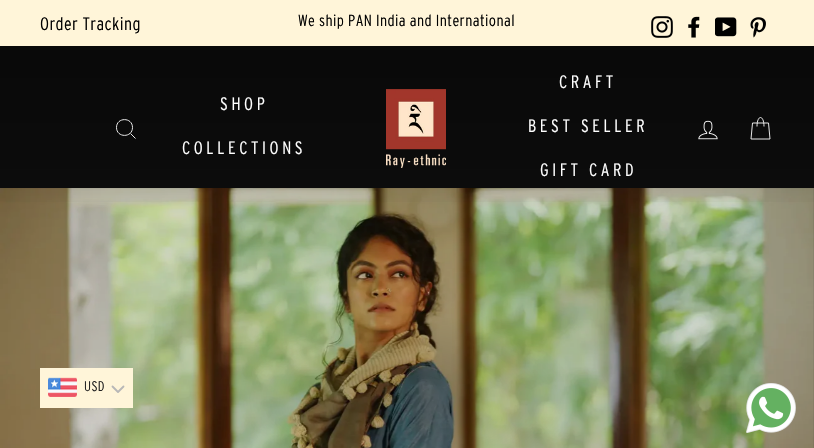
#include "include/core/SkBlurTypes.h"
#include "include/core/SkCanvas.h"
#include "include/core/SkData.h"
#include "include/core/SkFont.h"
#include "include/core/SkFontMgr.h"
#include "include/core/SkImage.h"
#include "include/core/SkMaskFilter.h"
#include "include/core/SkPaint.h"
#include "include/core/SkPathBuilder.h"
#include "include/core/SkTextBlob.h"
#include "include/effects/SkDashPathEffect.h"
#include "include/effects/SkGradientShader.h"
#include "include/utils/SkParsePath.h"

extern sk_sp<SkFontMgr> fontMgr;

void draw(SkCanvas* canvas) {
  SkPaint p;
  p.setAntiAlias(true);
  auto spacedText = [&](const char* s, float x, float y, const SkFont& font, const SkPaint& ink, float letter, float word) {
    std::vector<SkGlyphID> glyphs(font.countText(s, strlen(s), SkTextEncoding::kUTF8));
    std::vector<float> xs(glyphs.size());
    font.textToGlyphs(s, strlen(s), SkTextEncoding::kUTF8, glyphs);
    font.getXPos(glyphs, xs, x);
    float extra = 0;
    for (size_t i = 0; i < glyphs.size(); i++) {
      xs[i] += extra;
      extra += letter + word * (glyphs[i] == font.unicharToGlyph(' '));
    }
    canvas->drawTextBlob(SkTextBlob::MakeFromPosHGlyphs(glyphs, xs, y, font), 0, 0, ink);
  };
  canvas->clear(SkColorSetRGB(255, 245, 217));
  p.setColor(SkColorSetRGB(12, 12, 12));
  canvas->drawRect(SkRect::MakeLTRB(0, 46, 814, 448), p);
  canvas->drawImageRect(SkImages::DeferredFromEncodedData(SkData::MakeFromFileName("images/7.png")), SkRect::MakeLTRB(0, 188, 814, 448), SkSamplingOptions());
  {
    const SkColor colors[] = {SkColorSetARGB(77, 0, 0, 0), SkColorSetARGB(0, 0, 0, 0)};
    const float stops[] = {0, 1};
    const SkPoint ends[] = {{407, 46}, {407, 214}};
    p.setShader(SkGradientShader::MakeLinear(ends, colors, stops, 2, SkTileMode::kClamp));
    p.setAlpha(255);
  }
  canvas->drawRect(SkRect::MakeLTRB(0, 46, 814, 202), p);
  canvas->drawImageRect(SkImages::DeferredFromEncodedData(SkData::MakeFromFileName("images/1.png")), SkRect::MakeLTRB(651, 16, 673, 38), SkSamplingOptions());
  canvas->drawImageRect(SkImages::DeferredFromEncodedData(SkData::MakeFromFileName("images/2.png")), SkRect::MakeLTRB(688, 16, 700, 38), SkSamplingOptions());
  canvas->drawImageRect(SkImages::DeferredFromEncodedData(SkData::MakeFromFileName("images/3.png")), SkRect::MakeLTRB(715, 17, 737, 37), SkSamplingOptions());
  canvas->drawImageRect(SkImages::DeferredFromEncodedData(SkData::MakeFromFileName("images/4.png")), SkRect::MakeLTRB(750, 17, 766, 38), SkSamplingOptions());
  p.setStyle(SkPaint::kStroke_Style);
  p.setStrokeWidth(0.9f);
  p.setShader(nullptr);
  p.setColor(SK_ColorWHITE);
  canvas->drawPath(SkPathBuilder().moveTo(132.5f, 127.5f).cubicTo(132.5f, 138, 116.5f, 138, 116.5f, 127.5f).cubicTo(116.5f, 117, 132.5f, 117, 132.5f, 127.5f).close().moveTo(135.5f, 138.5f).lineTo(130.5f, 133.5f).detach(), p);
  canvas->drawImageRect(SkImages::DeferredFromEncodedData(SkData::MakeFromFileName("images/5.png")), SkRect::MakeLTRB(386, 89, 446, 168), SkSamplingOptions());
  canvas->drawImageRect(SkImages::DeferredFromEncodedData(SkData::MakeFromFileName("images/6.png")), SkRect::MakeLTRB(698, 120, 718, 140), SkSamplingOptions());
  canvas->drawPath(SkPathBuilder().moveTo(757, 126.5f).cubicTo(757, 114.5f, 764, 114.5f, 764, 126.5f).moveTo(752.5f, 123).lineTo(768.5f, 123).lineTo(770, 139).lineTo(751, 139).close().detach(), p);
  canvas->drawImageRect(SkImages::DeferredFromEncodedData(SkData::MakeFromFileName("images/8.png")), SkRect::MakeLTRB(746, 383, 796, 433), SkSamplingOptions());
  p.setStyle(SkPaint::kFill_Style);
  p.setColor(SkColorSetRGB(255, 245, 217));
  canvas->drawRect(SkRect::MakeLTRB(40, 368, 133, 408), p);
  canvas->drawImageRect(SkImages::DeferredFromEncodedData(SkData::MakeFromFileName("images/9.png")), SkRect::MakeLTRB(48, 377, 77, 397), SkSamplingOptions());
  p.setStyle(SkPaint::kStroke_Style);
  p.setStrokeWidth(1.8f);
  p.setStrokeCap(SkPaint::kRound_Cap);
  p.setStrokeJoin(SkPaint::kRound_Join);
  p.setColor(SkColorSetRGB(183, 183, 183));
  canvas->drawPath(SkPathBuilder().moveTo(112.5f, 386.5f).lineTo(118, 392).lineTo(123.5f, 386.5f).detach(), p);
  SkFont font1(fontMgr->matchFamilyStyle("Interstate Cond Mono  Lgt", SkFontStyle::Normal()), 16);
  font1.setSubpixel(true);
  p.setStyle(SkPaint::kFill_Style);
  p.setColor(SK_ColorBLACK);
  spacedText("We ship PAN India and International", 298, 26, font1, p, 0.4f, 0);
  SkFont font2(fontMgr->matchFamilyStyle("Interstate Cond Mono  Lgt", SkFontStyle::Normal()), 18);
  font2.setSubpixel(true);
  spacedText("Order Tracking", 40, 30, font2, p, 0.4f, 0);
  p.setColor(SK_ColorWHITE);
  spacedText("SHOP", 220, 110, font2, p, 3.6f, 0);
  spacedText("COLLECTIONS", 182, 154, font2, p, 3.6f, 0);
  spacedText("CRAFT", 559, 88, font2, p, 3.6f, 0);
  spacedText("BEST SELLER", 528, 132, font2, p, 3.6f, 0);
  spacedText("GIFT CARD", 540, 176, font2, p, 3.6f, 0);
  SkFont font3(fontMgr->matchFamilyStyle("Interstate Cond Mono  Lgt", SkFontStyle::Normal()), 14);
  font3.setSubpixel(true);
  p.setColor(SkColorSetRGB(30, 30, 30));
  spacedText("USD", 84, 391, font3, p, 0.4f, 0);
}
